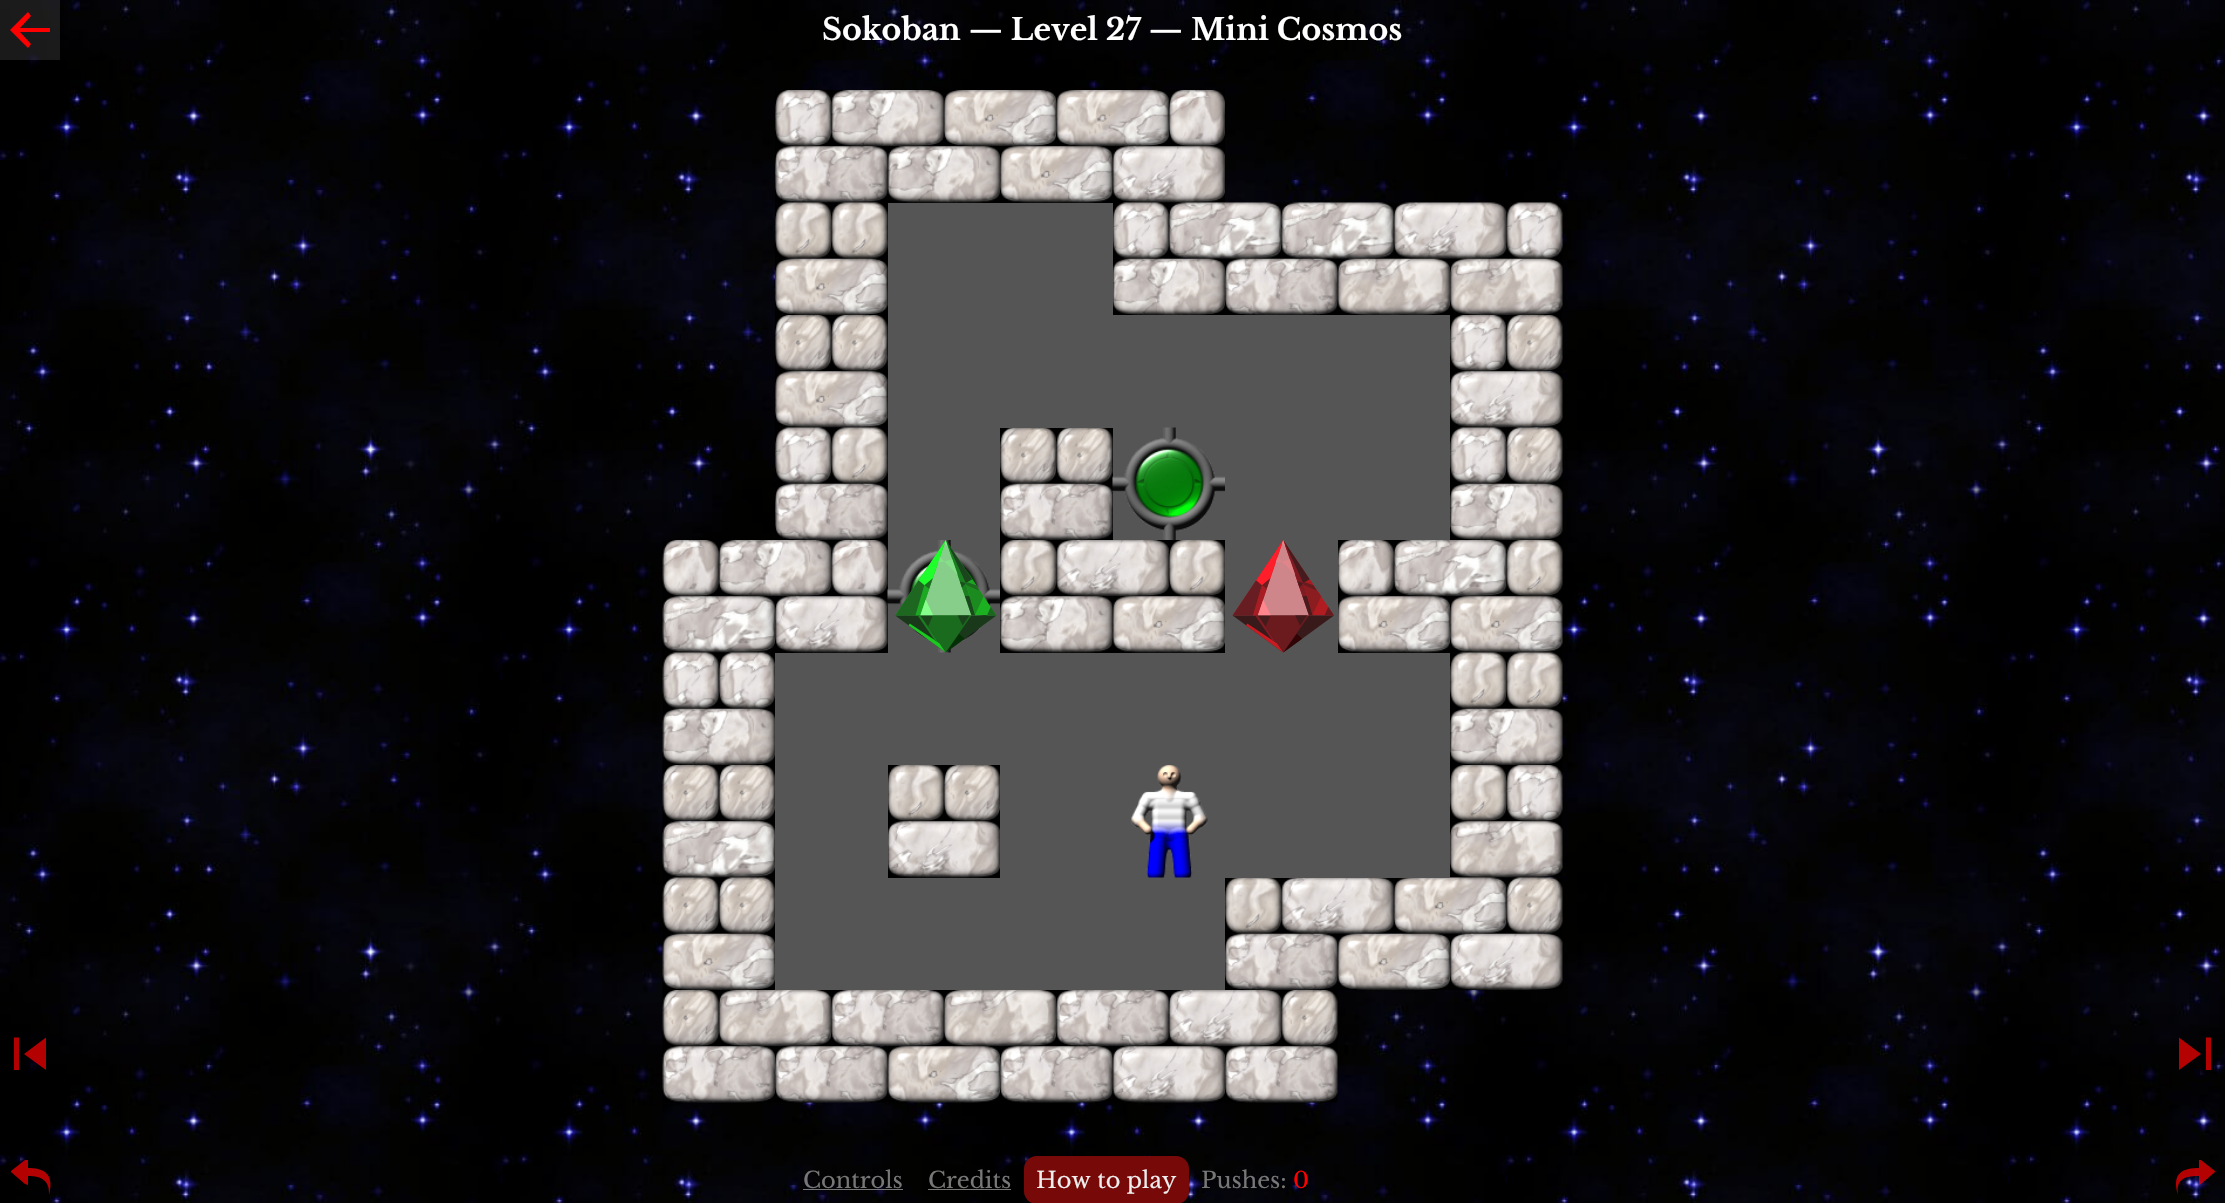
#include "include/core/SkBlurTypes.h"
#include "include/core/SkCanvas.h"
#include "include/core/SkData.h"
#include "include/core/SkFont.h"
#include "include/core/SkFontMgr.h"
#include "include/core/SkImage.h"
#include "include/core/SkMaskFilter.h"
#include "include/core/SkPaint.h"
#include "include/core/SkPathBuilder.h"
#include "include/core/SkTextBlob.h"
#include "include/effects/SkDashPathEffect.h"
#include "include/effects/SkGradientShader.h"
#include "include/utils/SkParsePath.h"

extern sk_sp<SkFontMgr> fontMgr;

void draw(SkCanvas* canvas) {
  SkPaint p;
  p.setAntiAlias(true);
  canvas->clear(SK_ColorWHITE);
  canvas->drawImageRect(SkImages::DeferredFromEncodedData(SkData::MakeFromFileName("images/1.png")), SkRect::MakeLTRB(0, 0, 2225, 1203), SkSamplingOptions());
  p.setColor(SkColorSetARGB(26, 255, 255, 255));
  canvas->drawRect(SkRect::MakeLTRB(0, 0, 60, 60), p);
  p.setColor(SkColorSetRGB(255, 0, 0));
  canvas->drawPath(SkPathBuilder().moveTo(28, 12).lineTo(10, 30).lineTo(28, 48).lineTo(31, 44).lineTo(20, 32).lineTo(50, 32).lineTo(50, 28).lineTo(20, 28).lineTo(31, 16).close().detach(), p);
  canvas->drawImageRect(SkImages::DeferredFromEncodedData(SkData::MakeFromFileName("images/2.png")), SkRect::MakeLTRB(775, 90, 832, 147), SkSamplingOptions());
  canvas->drawImageRect(SkImages::DeferredFromEncodedData(SkData::MakeFromFileName("images/3.png")), SkRect::MakeLTRB(831, 90, 944, 147), SkSamplingOptions());
  canvas->drawImageRect(SkImages::DeferredFromEncodedData(SkData::MakeFromFileName("images/4.png")), SkRect::MakeLTRB(943, 90, 1057, 147), SkSamplingOptions());
  canvas->drawImageRect(SkImages::DeferredFromEncodedData(SkData::MakeFromFileName("images/6.png")), SkRect::MakeLTRB(1168, 90, 1225, 147), SkSamplingOptions());
  canvas->drawImageRect(SkImages::DeferredFromEncodedData(SkData::MakeFromFileName("images/5.png")), SkRect::MakeLTRB(1056, 90, 1169, 147), SkSamplingOptions());
  canvas->drawImageRect(SkImages::DeferredFromEncodedData(SkData::MakeFromFileName("images/7.png")), SkRect::MakeLTRB(775, 146, 888, 203), SkSamplingOptions());
  canvas->drawImageRect(SkImages::DeferredFromEncodedData(SkData::MakeFromFileName("images/8.png")), SkRect::MakeLTRB(887, 146, 1000, 203), SkSamplingOptions());
  canvas->drawImageRect(SkImages::DeferredFromEncodedData(SkData::MakeFromFileName("images/9.png")), SkRect::MakeLTRB(1000, 146, 1113, 203), SkSamplingOptions());
  canvas->drawImageRect(SkImages::DeferredFromEncodedData(SkData::MakeFromFileName("images/10.png")), SkRect::MakeLTRB(1112, 146, 1225, 203), SkSamplingOptions());
  canvas->drawImageRect(SkImages::DeferredFromEncodedData(SkData::MakeFromFileName("images/11.png")), SkRect::MakeLTRB(775, 202, 832, 259), SkSamplingOptions());
  canvas->drawImageRect(SkImages::DeferredFromEncodedData(SkData::MakeFromFileName("images/12.png")), SkRect::MakeLTRB(831, 202, 888, 259), SkSamplingOptions());
  canvas->drawImageRect(SkImages::DeferredFromEncodedData(SkData::MakeFromFileName("images/13.png")), SkRect::MakeLTRB(775, 258, 888, 315), SkSamplingOptions());
  canvas->drawImageRect(SkImages::DeferredFromEncodedData(SkData::MakeFromFileName("images/14.png")), SkRect::MakeLTRB(1112, 202, 1169, 259), SkSamplingOptions());
  p.setColor(SkColorSetRGB(85, 85, 85));
  canvas->drawRect(SkRect::MakeLTRB(888, 203, 1113, 315), p);
  canvas->drawImageRect(SkImages::DeferredFromEncodedData(SkData::MakeFromFileName("images/15.png")), SkRect::MakeLTRB(1168, 202, 1282, 259), SkSamplingOptions());
  canvas->drawImageRect(SkImages::DeferredFromEncodedData(SkData::MakeFromFileName("images/16.png")), SkRect::MakeLTRB(1281, 202, 1394, 259), SkSamplingOptions());
  canvas->drawImageRect(SkImages::DeferredFromEncodedData(SkData::MakeFromFileName("images/18.png")), SkRect::MakeLTRB(1506, 202, 1563, 259), SkSamplingOptions());
  canvas->drawImageRect(SkImages::DeferredFromEncodedData(SkData::MakeFromFileName("images/17.png")), SkRect::MakeLTRB(1393, 202, 1507, 259), SkSamplingOptions());
  canvas->drawImageRect(SkImages::DeferredFromEncodedData(SkData::MakeFromFileName("images/19.png")), SkRect::MakeLTRB(1113, 258, 1225, 315), SkSamplingOptions());
  canvas->drawImageRect(SkImages::DeferredFromEncodedData(SkData::MakeFromFileName("images/20.png")), SkRect::MakeLTRB(1225, 258, 1338, 315), SkSamplingOptions());
  canvas->drawImageRect(SkImages::DeferredFromEncodedData(SkData::MakeFromFileName("images/21.png")), SkRect::MakeLTRB(1337, 258, 1450, 315), SkSamplingOptions());
  canvas->drawImageRect(SkImages::DeferredFromEncodedData(SkData::MakeFromFileName("images/22.png")), SkRect::MakeLTRB(1450, 258, 1563, 315), SkSamplingOptions());
  canvas->drawImageRect(SkImages::DeferredFromEncodedData(SkData::MakeFromFileName("images/23.png")), SkRect::MakeLTRB(775, 315, 832, 372), SkSamplingOptions());
  canvas->drawImageRect(SkImages::DeferredFromEncodedData(SkData::MakeFromFileName("images/24.png")), SkRect::MakeLTRB(831, 315, 888, 372), SkSamplingOptions());
  canvas->drawImageRect(SkImages::DeferredFromEncodedData(SkData::MakeFromFileName("images/25.png")), SkRect::MakeLTRB(775, 371, 888, 428), SkSamplingOptions());
  canvas->drawRect(SkRect::MakeLTRB(888, 315, 1450, 428), p);
  canvas->drawImageRect(SkImages::DeferredFromEncodedData(SkData::MakeFromFileName("images/26.png")), SkRect::MakeLTRB(1450, 315, 1507, 372), SkSamplingOptions());
  canvas->drawImageRect(SkImages::DeferredFromEncodedData(SkData::MakeFromFileName("images/27.png")), SkRect::MakeLTRB(1506, 315, 1563, 372), SkSamplingOptions());
  canvas->drawImageRect(SkImages::DeferredFromEncodedData(SkData::MakeFromFileName("images/28.png")), SkRect::MakeLTRB(1450, 371, 1563, 428), SkSamplingOptions());
  canvas->drawImageRect(SkImages::DeferredFromEncodedData(SkData::MakeFromFileName("images/29.png")), SkRect::MakeLTRB(775, 427, 832, 484), SkSamplingOptions());
  canvas->drawImageRect(SkImages::DeferredFromEncodedData(SkData::MakeFromFileName("images/30.png")), SkRect::MakeLTRB(831, 427, 888, 484), SkSamplingOptions());
  canvas->drawImageRect(SkImages::DeferredFromEncodedData(SkData::MakeFromFileName("images/31.png")), SkRect::MakeLTRB(775, 483, 888, 540), SkSamplingOptions());
  canvas->drawRect(SkRect::MakeLTRB(888, 428, 1000, 653), p);
  canvas->drawImageRect(SkImages::DeferredFromEncodedData(SkData::MakeFromFileName("images/32.png")), SkRect::MakeLTRB(1000, 428, 1057, 484), SkSamplingOptions());
  canvas->drawImageRect(SkImages::DeferredFromEncodedData(SkData::MakeFromFileName("images/33.png")), SkRect::MakeLTRB(1056, 428, 1113, 484), SkSamplingOptions());
  canvas->drawImageRect(SkImages::DeferredFromEncodedData(SkData::MakeFromFileName("images/34.png")), SkRect::MakeLTRB(1000, 483, 1113, 540), SkSamplingOptions());
  canvas->drawRect(SkRect::MakeLTRB(1113, 428, 1450, 540), p);
  canvas->drawImageRect(SkImages::DeferredFromEncodedData(SkData::MakeFromFileName("images/35.png")), SkRect::MakeLTRB(1112, 427, 1225, 540), SkSamplingOptions());
  canvas->drawImageRect(SkImages::DeferredFromEncodedData(SkData::MakeFromFileName("images/36.png")), SkRect::MakeLTRB(1450, 427, 1507, 484), SkSamplingOptions());
  canvas->drawImageRect(SkImages::DeferredFromEncodedData(SkData::MakeFromFileName("images/37.png")), SkRect::MakeLTRB(1506, 427, 1563, 484), SkSamplingOptions());
  canvas->drawImageRect(SkImages::DeferredFromEncodedData(SkData::MakeFromFileName("images/38.png")), SkRect::MakeLTRB(1450, 483, 1563, 540), SkSamplingOptions());
  canvas->drawImageRect(SkImages::DeferredFromEncodedData(SkData::MakeFromFileName("images/39.png")), SkRect::MakeLTRB(662, 540, 719, 597), SkSamplingOptions());
  canvas->drawImageRect(SkImages::DeferredFromEncodedData(SkData::MakeFromFileName("images/41.png")), SkRect::MakeLTRB(831, 540, 888, 597), SkSamplingOptions());
  canvas->drawImageRect(SkImages::DeferredFromEncodedData(SkData::MakeFromFileName("images/40.png")), SkRect::MakeLTRB(718, 540, 832, 597), SkSamplingOptions());
  canvas->drawImageRect(SkImages::DeferredFromEncodedData(SkData::MakeFromFileName("images/42.png")), SkRect::MakeLTRB(662, 596, 775, 653), SkSamplingOptions());
  canvas->drawImageRect(SkImages::DeferredFromEncodedData(SkData::MakeFromFileName("images/43.png")), SkRect::MakeLTRB(775, 596, 888, 653), SkSamplingOptions());
  canvas->drawImageRect(SkImages::DeferredFromEncodedData(SkData::MakeFromFileName("images/44.png")), SkRect::MakeLTRB(887, 540, 1000, 653), SkSamplingOptions());
  canvas->drawImageRect(SkImages::DeferredFromEncodedData(SkData::MakeFromFileName("images/45.png")), SkRect::MakeLTRB(895, 540, 997, 653), SkSamplingOptions());
  canvas->drawImageRect(SkImages::DeferredFromEncodedData(SkData::MakeFromFileName("images/46.png")), SkRect::MakeLTRB(1000, 540, 1057, 597), SkSamplingOptions());
  canvas->drawImageRect(SkImages::DeferredFromEncodedData(SkData::MakeFromFileName("images/48.png")), SkRect::MakeLTRB(1168, 540, 1225, 597), SkSamplingOptions());
  canvas->drawImageRect(SkImages::DeferredFromEncodedData(SkData::MakeFromFileName("images/47.png")), SkRect::MakeLTRB(1056, 540, 1169, 597), SkSamplingOptions());
  canvas->drawImageRect(SkImages::DeferredFromEncodedData(SkData::MakeFromFileName("images/49.png")), SkRect::MakeLTRB(1000, 596, 1113, 653), SkSamplingOptions());
  canvas->drawImageRect(SkImages::DeferredFromEncodedData(SkData::MakeFromFileName("images/50.png")), SkRect::MakeLTRB(1112, 596, 1225, 653), SkSamplingOptions());
  canvas->drawRect(SkRect::MakeLTRB(1225, 540, 1338, 653), p);
  canvas->drawImageRect(SkImages::DeferredFromEncodedData(SkData::MakeFromFileName("images/51.png")), SkRect::MakeLTRB(1232, 540, 1334, 653), SkSamplingOptions());
  canvas->drawImageRect(SkImages::DeferredFromEncodedData(SkData::MakeFromFileName("images/52.png")), SkRect::MakeLTRB(1338, 540, 1394, 597), SkSamplingOptions());
  canvas->drawImageRect(SkImages::DeferredFromEncodedData(SkData::MakeFromFileName("images/54.png")), SkRect::MakeLTRB(1506, 540, 1563, 597), SkSamplingOptions());
  canvas->drawImageRect(SkImages::DeferredFromEncodedData(SkData::MakeFromFileName("images/53.png")), SkRect::MakeLTRB(1393, 540, 1507, 597), SkSamplingOptions());
  canvas->drawImageRect(SkImages::DeferredFromEncodedData(SkData::MakeFromFileName("images/55.png")), SkRect::MakeLTRB(1338, 596, 1450, 653), SkSamplingOptions());
  canvas->drawImageRect(SkImages::DeferredFromEncodedData(SkData::MakeFromFileName("images/56.png")), SkRect::MakeLTRB(1450, 596, 1563, 653), SkSamplingOptions());
  canvas->drawImageRect(SkImages::DeferredFromEncodedData(SkData::MakeFromFileName("images/57.png")), SkRect::MakeLTRB(662, 652, 719, 709), SkSamplingOptions());
  canvas->drawImageRect(SkImages::DeferredFromEncodedData(SkData::MakeFromFileName("images/58.png")), SkRect::MakeLTRB(718, 652, 775, 709), SkSamplingOptions());
  canvas->drawImageRect(SkImages::DeferredFromEncodedData(SkData::MakeFromFileName("images/59.png")), SkRect::MakeLTRB(662, 708, 775, 765), SkSamplingOptions());
  canvas->drawRect(SkRect::MakeLTRB(775, 653, 1450, 765), p);
  canvas->drawImageRect(SkImages::DeferredFromEncodedData(SkData::MakeFromFileName("images/60.png")), SkRect::MakeLTRB(1450, 652, 1507, 709), SkSamplingOptions());
  canvas->drawImageRect(SkImages::DeferredFromEncodedData(SkData::MakeFromFileName("images/61.png")), SkRect::MakeLTRB(1506, 652, 1563, 709), SkSamplingOptions());
  canvas->drawImageRect(SkImages::DeferredFromEncodedData(SkData::MakeFromFileName("images/62.png")), SkRect::MakeLTRB(1450, 708, 1563, 765), SkSamplingOptions());
  canvas->drawImageRect(SkImages::DeferredFromEncodedData(SkData::MakeFromFileName("images/63.png")), SkRect::MakeLTRB(662, 765, 719, 822), SkSamplingOptions());
  canvas->drawImageRect(SkImages::DeferredFromEncodedData(SkData::MakeFromFileName("images/64.png")), SkRect::MakeLTRB(718, 765, 775, 822), SkSamplingOptions());
  canvas->drawImageRect(SkImages::DeferredFromEncodedData(SkData::MakeFromFileName("images/65.png")), SkRect::MakeLTRB(662, 821, 775, 878), SkSamplingOptions());
  canvas->drawRect(SkRect::MakeLTRB(775, 765, 888, 990), p);
  canvas->drawImageRect(SkImages::DeferredFromEncodedData(SkData::MakeFromFileName("images/66.png")), SkRect::MakeLTRB(888, 765, 944, 822), SkSamplingOptions());
  canvas->drawImageRect(SkImages::DeferredFromEncodedData(SkData::MakeFromFileName("images/67.png")), SkRect::MakeLTRB(943, 765, 1000, 822), SkSamplingOptions());
  canvas->drawImageRect(SkImages::DeferredFromEncodedData(SkData::MakeFromFileName("images/68.png")), SkRect::MakeLTRB(888, 821, 1000, 878), SkSamplingOptions());
  canvas->drawImageRect(SkImages::DeferredFromEncodedData(SkData::MakeFromFileName("images/70.png")), SkRect::MakeLTRB(1450, 765, 1507, 822), SkSamplingOptions());
  canvas->drawImageRect(SkImages::DeferredFromEncodedData(SkData::MakeFromFileName("images/71.png")), SkRect::MakeLTRB(1506, 765, 1563, 822), SkSamplingOptions());
  canvas->drawImageRect(SkImages::DeferredFromEncodedData(SkData::MakeFromFileName("images/72.png")), SkRect::MakeLTRB(1450, 821, 1563, 878), SkSamplingOptions());
  canvas->drawImageRect(SkImages::DeferredFromEncodedData(SkData::MakeFromFileName("images/76.png")), SkRect::MakeLTRB(1225, 878, 1282, 934), SkSamplingOptions());
  canvas->drawImageRect(SkImages::DeferredFromEncodedData(SkData::MakeFromFileName("images/77.png")), SkRect::MakeLTRB(1281, 878, 1394, 934), SkSamplingOptions());
  canvas->drawImageRect(SkImages::DeferredFromEncodedData(SkData::MakeFromFileName("images/79.png")), SkRect::MakeLTRB(1506, 877, 1563, 934), SkSamplingOptions());
  canvas->drawImageRect(SkImages::DeferredFromEncodedData(SkData::MakeFromFileName("images/78.png")), SkRect::MakeLTRB(1393, 877, 1507, 934), SkSamplingOptions());
  canvas->drawRect(SkRect::MakeLTRB(1000, 765, 1450, 878), p);
  canvas->drawImageRect(SkImages::DeferredFromEncodedData(SkData::MakeFromFileName("images/69.png")), SkRect::MakeLTRB(1131, 765, 1208, 878), SkSamplingOptions());
  canvas->drawImageRect(SkImages::DeferredFromEncodedData(SkData::MakeFromFileName("images/73.png")), SkRect::MakeLTRB(662, 877, 719, 934), SkSamplingOptions());
  canvas->drawImageRect(SkImages::DeferredFromEncodedData(SkData::MakeFromFileName("images/74.png")), SkRect::MakeLTRB(718, 877, 775, 934), SkSamplingOptions());
  canvas->drawImageRect(SkImages::DeferredFromEncodedData(SkData::MakeFromFileName("images/75.png")), SkRect::MakeLTRB(662, 933, 775, 990), SkSamplingOptions());
  canvas->drawRect(SkRect::MakeLTRB(888, 878, 1225, 990), p);
  canvas->drawImageRect(SkImages::DeferredFromEncodedData(SkData::MakeFromFileName("images/80.png")), SkRect::MakeLTRB(1225, 933, 1338, 990), SkSamplingOptions());
  canvas->drawImageRect(SkImages::DeferredFromEncodedData(SkData::MakeFromFileName("images/81.png")), SkRect::MakeLTRB(1337, 933, 1450, 990), SkSamplingOptions());
  canvas->drawImageRect(SkImages::DeferredFromEncodedData(SkData::MakeFromFileName("images/82.png")), SkRect::MakeLTRB(1450, 933, 1563, 990), SkSamplingOptions());
  canvas->drawImageRect(SkImages::DeferredFromEncodedData(SkData::MakeFromFileName("images/83.png")), SkRect::MakeLTRB(662, 990, 719, 1047), SkSamplingOptions());
  canvas->drawImageRect(SkImages::DeferredFromEncodedData(SkData::MakeFromFileName("images/84.png")), SkRect::MakeLTRB(718, 990, 832, 1047), SkSamplingOptions());
  canvas->drawImageRect(SkImages::DeferredFromEncodedData(SkData::MakeFromFileName("images/85.png")), SkRect::MakeLTRB(831, 990, 944, 1047), SkSamplingOptions());
  canvas->drawImageRect(SkImages::DeferredFromEncodedData(SkData::MakeFromFileName("images/86.png")), SkRect::MakeLTRB(943, 990, 1057, 1047), SkSamplingOptions());
  canvas->drawImageRect(SkImages::DeferredFromEncodedData(SkData::MakeFromFileName("images/87.png")), SkRect::MakeLTRB(1056, 990, 1169, 1047), SkSamplingOptions());
  canvas->drawImageRect(SkImages::DeferredFromEncodedData(SkData::MakeFromFileName("images/89.png")), SkRect::MakeLTRB(1281, 990, 1338, 1047), SkSamplingOptions());
  canvas->drawImageRect(SkImages::DeferredFromEncodedData(SkData::MakeFromFileName("images/88.png")), SkRect::MakeLTRB(1168, 990, 1282, 1047), SkSamplingOptions());
  canvas->drawImageRect(SkImages::DeferredFromEncodedData(SkData::MakeFromFileName("images/90.png")), SkRect::MakeLTRB(662, 1046, 775, 1103), SkSamplingOptions());
  canvas->drawImageRect(SkImages::DeferredFromEncodedData(SkData::MakeFromFileName("images/91.png")), SkRect::MakeLTRB(775, 1046, 888, 1103), SkSamplingOptions());
  canvas->drawImageRect(SkImages::DeferredFromEncodedData(SkData::MakeFromFileName("images/92.png")), SkRect::MakeLTRB(887, 1046, 1000, 1103), SkSamplingOptions());
  canvas->drawImageRect(SkImages::DeferredFromEncodedData(SkData::MakeFromFileName("images/93.png")), SkRect::MakeLTRB(1000, 1046, 1113, 1103), SkSamplingOptions());
  canvas->drawImageRect(SkImages::DeferredFromEncodedData(SkData::MakeFromFileName("images/94.png")), SkRect::MakeLTRB(1112, 1046, 1225, 1103), SkSamplingOptions());
  canvas->drawImageRect(SkImages::DeferredFromEncodedData(SkData::MakeFromFileName("images/95.png")), SkRect::MakeLTRB(1225, 1046, 1338, 1103), SkSamplingOptions());
  p.setColor(SkColorSetARGB(179, 255, 0, 0));
  canvas->drawPath(SkPathBuilder().moveTo(46, 1070).lineTo(24, 1054).lineTo(46, 1037.5f).close().moveTo(19, 1037.5f).lineTo(19, 1070).lineTo(14, 1070).lineTo(14, 1037.5f).close().detach(), p);
  canvas->drawPath(SkPathBuilder().moveTo(2179, 1070).lineTo(2201, 1054).lineTo(2179, 1037.5f).close().moveTo(2206, 1037.5f).lineTo(2206, 1070).lineTo(2211, 1070).lineTo(2211, 1037.5f).close().detach(), p);
  canvas->drawPath(SkPathBuilder().moveTo(26, 1160).lineTo(25, 1160).lineTo(11, 1171).lineTo(11, 1172).lineTo(25, 1184).lineTo(28, 1185).lineTo(28, 1176).cubicTo(42, 1176, 50, 1181, 49, 1195).cubicTo(55, 1172, 42, 1168, 28, 1168).lineTo(28, 1160).close().detach(), p);
  canvas->drawPath(SkPathBuilder().moveTo(2199, 1160).lineTo(2201, 1160).lineTo(2215, 1171).lineTo(2215, 1172).lineTo(2201, 1184).lineTo(2199, 1185).lineTo(2199, 1176).cubicTo(2182, 1176, 2176, 1181, 2178, 1195).cubicTo(2171, 1172, 2184, 1168, 2199, 1168).close().detach(), p);
  p.setColor(SkColorSetRGB(119, 119, 119));
  canvas->drawRect(SkRect::MakeLTRB(803, 1189, 903, 1190), p);
  canvas->drawRect(SkRect::MakeLTRB(928, 1189, 1011, 1190), p);
  p.setColor(SkColorSetRGB(120, 9, 9));
  canvas->drawRoundRect(SkRect::MakeLTRB(1024, 1156, 1189, 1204), 13, 13, p);
  SkFont font1(fontMgr->matchFamilyStyle("Libre Baskerville", SkFontStyle::Bold()), 30);
  font1.setSubpixel(true);
  p.setColor(SK_ColorWHITE);
  canvas->drawString("Sokoban — Level 27 — Mini Cosmos", 822, 40, font1, p);
  SkFont font2(fontMgr->matchFamilyStyle("Libre Baskerville", SkFontStyle::Normal()), 22.5f);
  font2.setSubpixel(true);
  p.setColor(SkColorSetRGB(119, 119, 119));
  canvas->drawString("Controls", 803, 1188, font2, p);
  canvas->drawString("Credits", 928, 1188, font2, p);
  p.setColor(SkColorSetRGB(238, 238, 238));
  canvas->drawString("How to play", 1036, 1188, font2, p);
  p.setColor(SkColorSetRGB(119, 119, 119));
  canvas->drawString("Pushes:", 1201, 1188, font2, p);
  p.setColor(SkColorSetRGB(255, 0, 0));
  canvas->drawString("0", 1293, 1188, font2, p);
}
